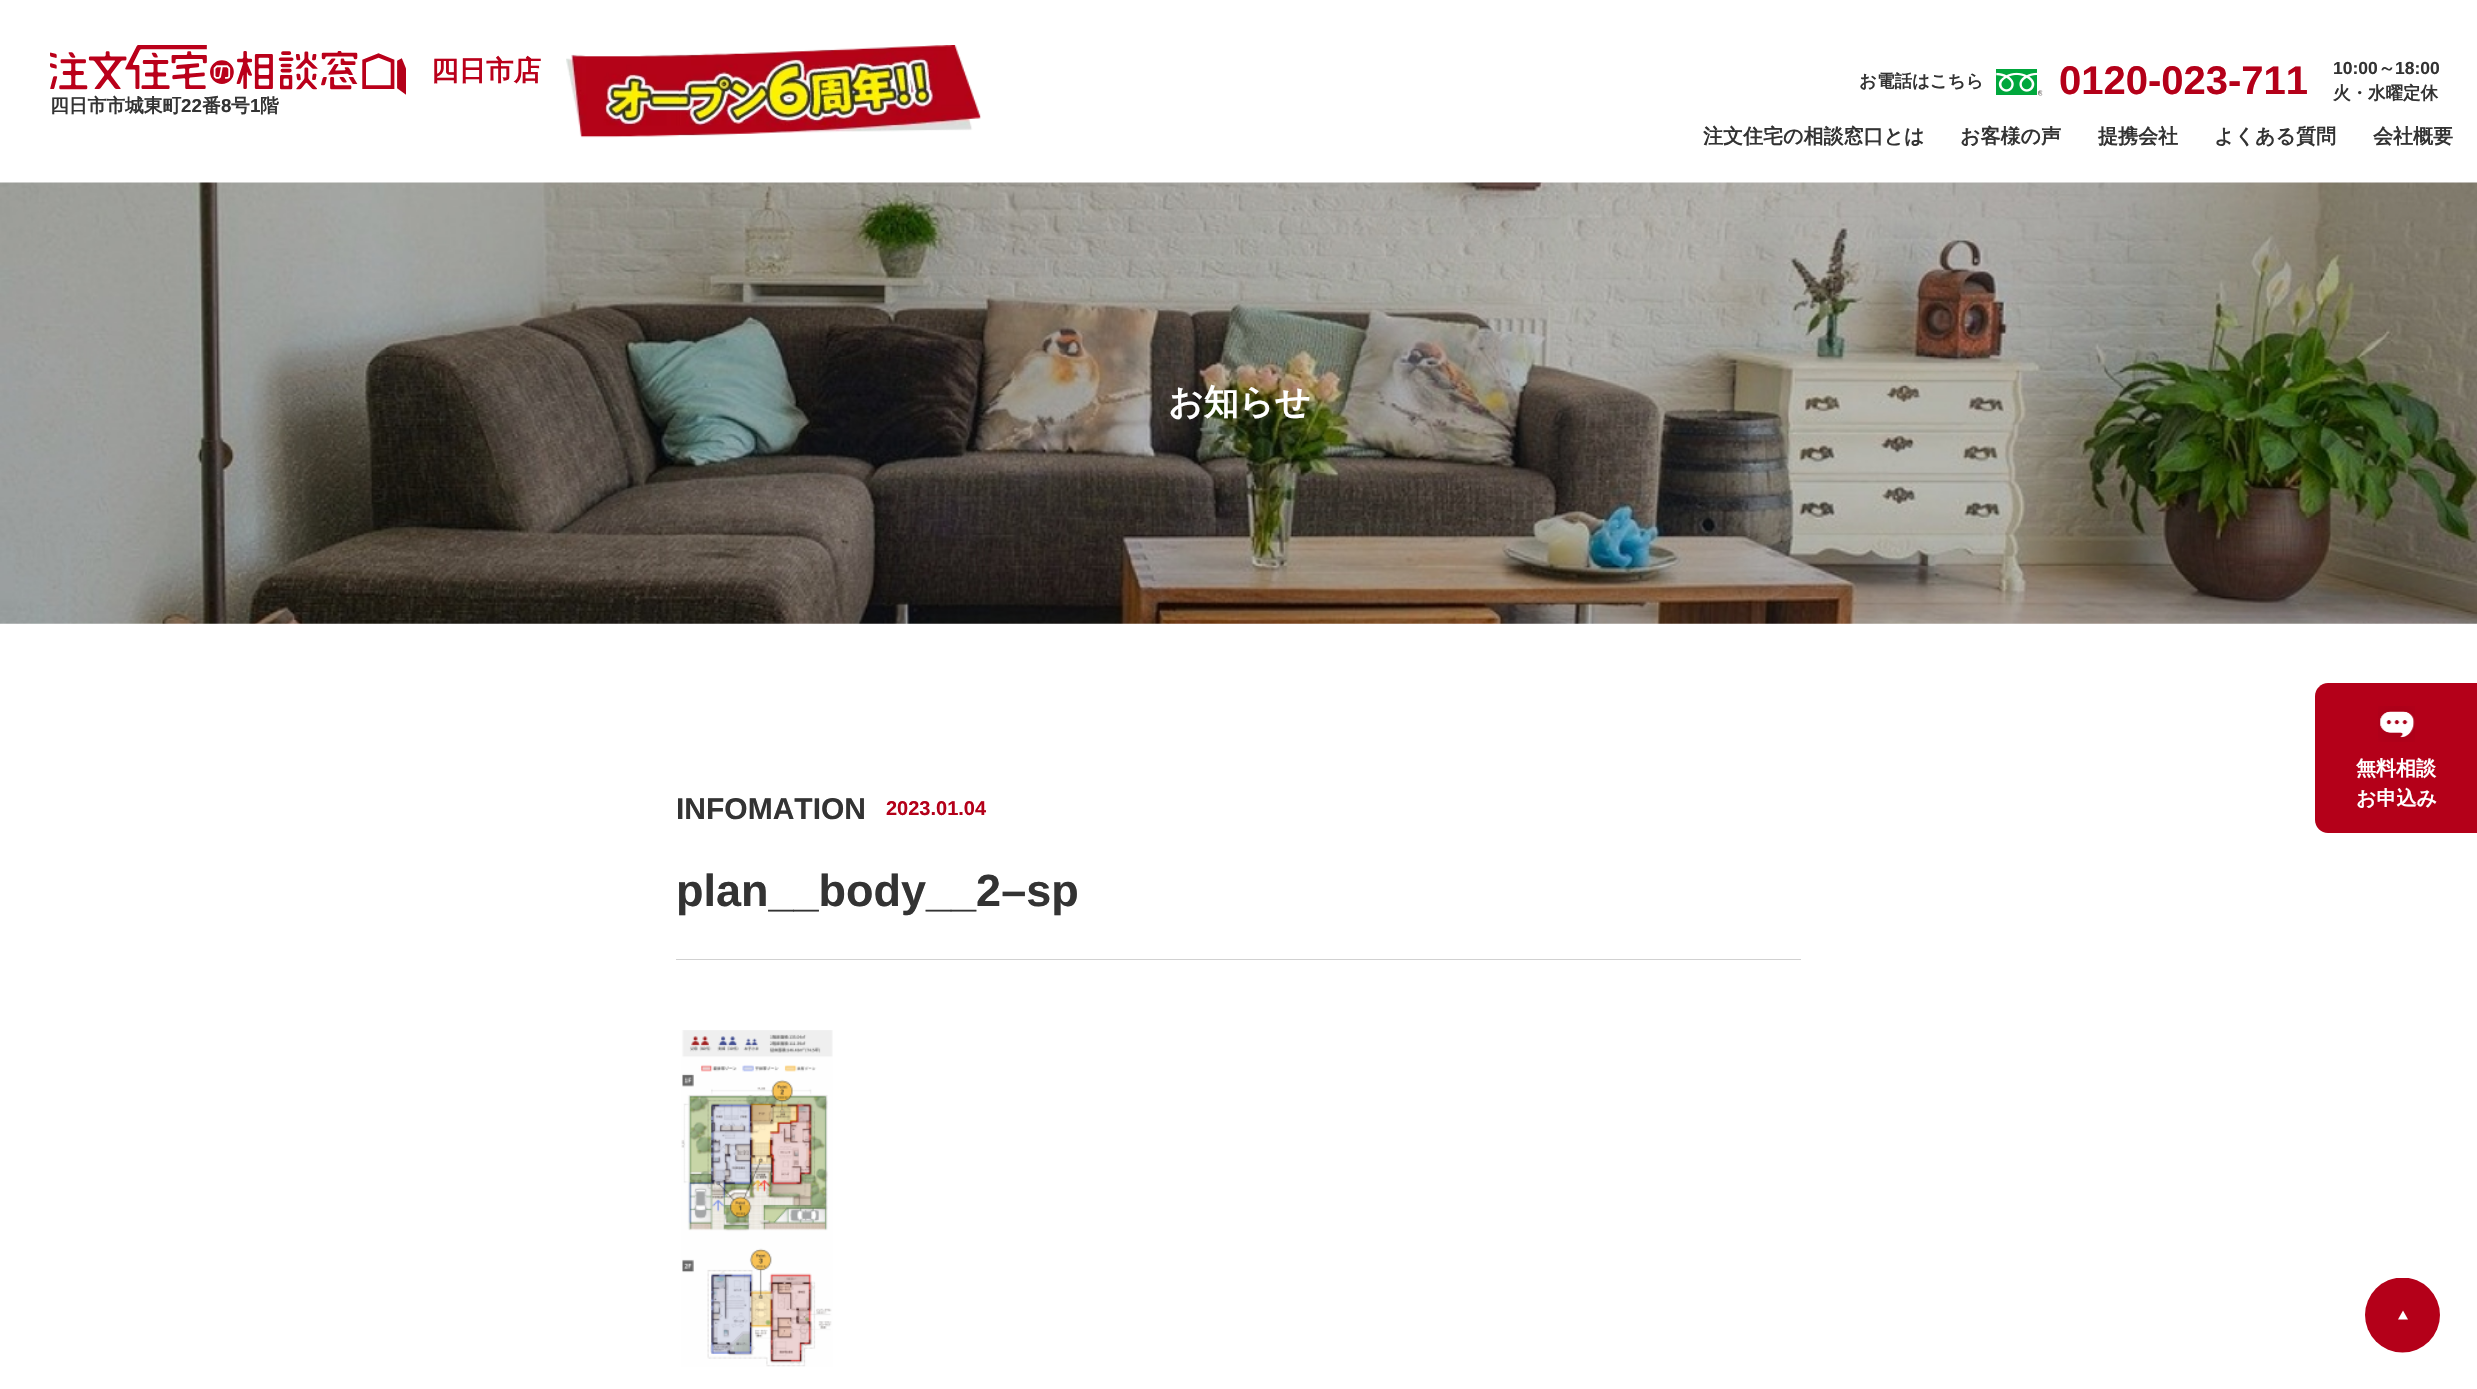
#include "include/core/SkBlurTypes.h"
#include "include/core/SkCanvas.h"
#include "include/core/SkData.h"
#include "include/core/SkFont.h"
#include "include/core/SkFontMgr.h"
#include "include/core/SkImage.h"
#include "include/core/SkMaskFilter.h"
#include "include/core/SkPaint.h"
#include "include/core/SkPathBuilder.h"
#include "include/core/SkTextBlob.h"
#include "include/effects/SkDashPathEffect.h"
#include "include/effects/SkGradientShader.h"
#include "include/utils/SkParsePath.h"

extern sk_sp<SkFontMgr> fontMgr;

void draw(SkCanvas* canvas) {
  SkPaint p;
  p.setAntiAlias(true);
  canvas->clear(SK_ColorWHITE);
  canvas->drawImageRect(SkImages::DeferredFromEncodedData(SkData::MakeFromFileName("images/1.png")), SkRect::MakeLTRB(50, 45, 406, 95), SkSamplingOptions());
  canvas->drawImageRect(SkImages::DeferredFromEncodedData(SkData::MakeFromFileName("images/2.png")), SkRect::MakeLTRB(566, 45, 981, 138), SkSamplingOptions());
  canvas->drawImageRect(SkImages::DeferredFromEncodedData(SkData::MakeFromFileName("images/3.png")), SkRect::MakeLTRB(1996, 69, 2043, 96), SkSamplingOptions());
  canvas->drawImageRect(SkImages::DeferredFromEncodedData(SkData::MakeFromFileName("images/4.png")), SkRect::MakeLTRB(0, 182, 2477, 624), SkSamplingOptions());
  p.setColor(SkColorSetRGB(209, 209, 209));
  canvas->drawRect(SkRect::MakeLTRB(676, 959, 1801, 960), p);
  canvas->drawImageRect(SkImages::DeferredFromEncodedData(SkData::MakeFromFileName("images/5.png")), SkRect::MakeLTRB(681, 1030, 833, 1367), SkSamplingOptions());
  p.setColor(SkColorSetRGB(180, 0, 25));
  canvas->drawPath(SkPathBuilder().moveTo(2328, 683).lineTo(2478, 683).lineTo(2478, 833).lineTo(2328, 833).cubicTo(2321, 833, 2315, 827, 2315, 820).lineTo(2315, 696).cubicTo(2315, 689, 2321, 683, 2328, 683).close().detach(), p);
  canvas->drawImageRect(SkImages::DeferredFromEncodedData(SkData::MakeFromFileName("images/6.png")), SkRect::MakeLTRB(2378, 706, 2415, 742), SkSamplingOptions());
  canvas->save();
  canvas->clipRect(SkRect::MakeLTRB(2365, 1278, 2440, 1353));
  canvas->drawCircle(2402.5f, 1315, 37.5f, p);
  canvas->restore();
  p.setColor(SK_ColorWHITE);
  canvas->drawPath(SkPathBuilder().moveTo(2403, 1310.5f).lineTo(2408, 1319.5f).lineTo(2398, 1319.5f).close().detach(), p);
  SkFont font1(fontMgr->matchFamilyStyle("WenQuanYi Zen Hei", SkFontStyle::Bold()), 27.5f);
  font1.setSubpixel(true);
  p.setColor(SkColorSetRGB(186, 0, 26));
  canvas->drawString("四日市店", 431, 80, font1, p);
  SkFont font2(fontMgr->matchFamilyStyle("WenQuanYi Zen Hei", SkFontStyle::Bold()), 18.75f);
  font2.setSubpixel(true);
  p.setColor(SkColorSetRGB(51, 51, 51));
  canvas->drawString("四日市市城東町", 50, 112, font2, p);
  SkFont font3(fontMgr->matchFamilyStyle("Liberation Sans", SkFontStyle::Bold()), 18.75f);
  font3.setSubpixel(true);
  canvas->drawString("22", 181, 112, font3, p);
  canvas->drawString("番", 202, 112, font2, p);
  canvas->drawString("8", 221, 112, font3, p);
  canvas->drawString("号", 231, 112, font2, p);
  canvas->drawString("1", 250, 112, font3, p);
  canvas->drawString("階", 260, 112, font2, p);
  SkFont font4(fontMgr->matchFamilyStyle("WenQuanYi Zen Hei", SkFontStyle::Bold()), 17.5f);
  font4.setSubpixel(true);
  canvas->drawString("お電話はこちら", 1859, 87, font4, p);
  SkFont font5(fontMgr->matchFamilyStyle("Liberation Sans", SkFontStyle::Bold()), 40);
  font5.setSubpixel(true);
  p.setColor(SkColorSetRGB(180, 0, 25));
  canvas->drawString("0120-023-711", 2059, 94, font5, p);
  SkFont font6(fontMgr->matchFamilyStyle("Liberation Sans", SkFontStyle::Bold()), 17.5f);
  font6.setSubpixel(true);
  p.setColor(SkColorSetRGB(51, 51, 51));
  canvas->drawString("10:00", 2333, 74, font6, p);
  canvas->drawString("～", 2378, 74, font4, p);
  canvas->drawString("18:00", 2395, 74, font6, p);
  canvas->drawString("火・水曜定休", 2333, 99, font4, p);
  SkFont font7(fontMgr->matchFamilyStyle("WenQuanYi Zen Hei", SkFontStyle::Bold()), 20);
  font7.setSubpixel(true);
  canvas->drawString("注文住宅の相談窓口とは", 1703, 143, font7, p);
  canvas->drawString("お客様の声", 1960, 143, font7, p);
  canvas->drawString("提携会社", 2098, 143, font7, p);
  canvas->drawString("よくある質問", 2214, 143, font7, p);
  canvas->drawString("会社概要", 2373, 143, font7, p);
  SkFont font8(fontMgr->matchFamilyStyle("WenQuanYi Zen Hei", SkFontStyle::Bold()), 35);
  font8.setSubpixel(true);
  p.setColor(SK_ColorWHITE);
  canvas->drawString("お知らせ", 1168, 414, font8, p);
  SkFont font9(fontMgr->matchFamilyStyle("Liberation Sans", SkFontStyle::Bold()), 30);
  font9.setSubpixel(true);
  p.setColor(SkColorSetRGB(51, 51, 51));
  canvas->drawString("INFOMATION", 676, 819, font9, p);
  SkFont font10(fontMgr->matchFamilyStyle("Liberation Sans", SkFontStyle::Bold()), 20);
  font10.setSubpixel(true);
  p.setColor(SkColorSetRGB(180, 0, 25));
  canvas->drawString("2023.01.04", 886, 815, font10, p);
  SkFont font11(fontMgr->matchFamilyStyle("Liberation Sans", SkFontStyle::Bold()), 45);
  font11.setSubpixel(true);
  p.setColor(SkColorSetRGB(51, 51, 51));
  canvas->drawString("plan__body__2–sp", 676, 906, font11, p);
  p.setColor(SK_ColorWHITE);
  canvas->drawString("無料相談", 2356, 775, font7, p);
  canvas->drawString("お申込み", 2356, 805, font7, p);
}
